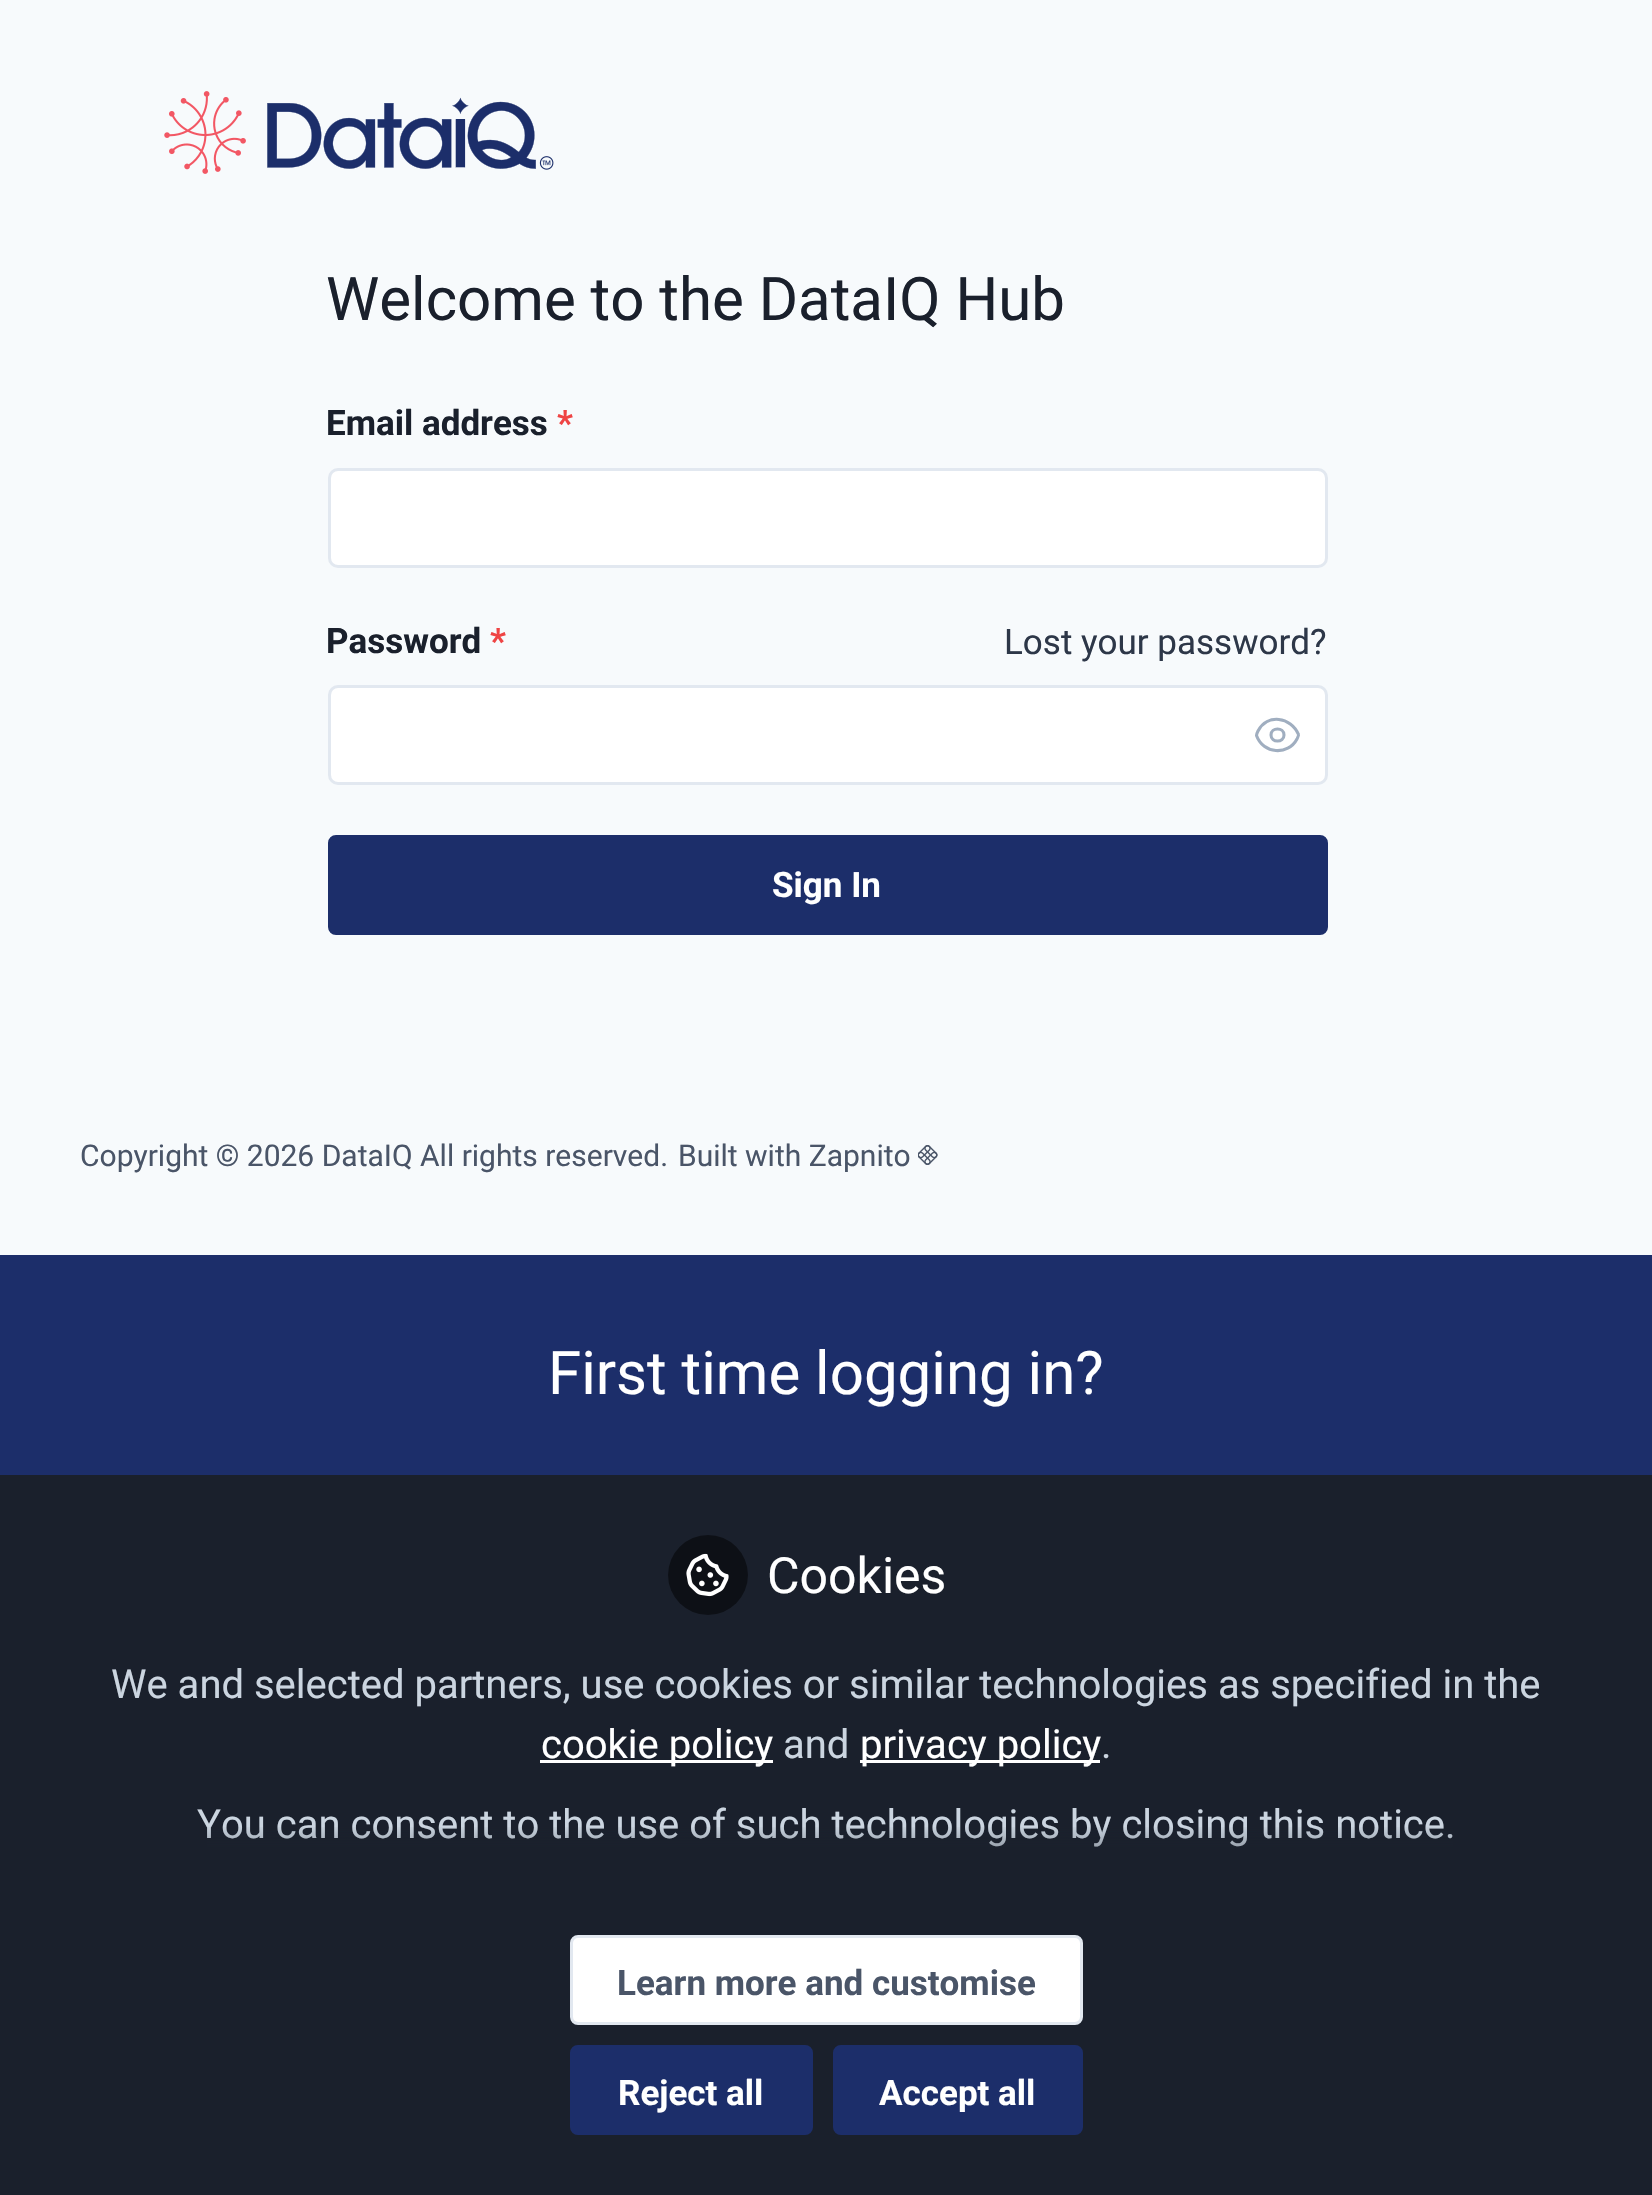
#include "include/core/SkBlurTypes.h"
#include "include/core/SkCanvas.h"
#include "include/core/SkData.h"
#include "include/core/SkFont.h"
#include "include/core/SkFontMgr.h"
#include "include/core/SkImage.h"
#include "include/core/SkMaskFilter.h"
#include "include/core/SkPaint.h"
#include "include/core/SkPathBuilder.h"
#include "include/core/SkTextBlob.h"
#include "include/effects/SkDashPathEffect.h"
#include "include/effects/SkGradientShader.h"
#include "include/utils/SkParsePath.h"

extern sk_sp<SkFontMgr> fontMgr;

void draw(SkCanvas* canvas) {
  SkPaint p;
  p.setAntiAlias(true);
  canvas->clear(SkColorSetRGB(247, 250, 252));
  canvas->drawImageRect(SkImages::DeferredFromEncodedData(SkData::MakeFromFileName("images/1.png")), SkRect::MakeLTRB(164, 91, 554, 174), SkSamplingOptions());
  p.setColor(SK_ColorWHITE);
  canvas->drawRoundRect(SkRect::MakeLTRB(329.5f, 469.5f, 1326.5f, 566.5f), 8.5f, 8.5f, p);
  p.setStyle(SkPaint::kStroke_Style);
  p.setStrokeWidth(3);
  p.setColor(SkColorSetRGB(226, 232, 240));
  canvas->drawRoundRect(SkRect::MakeLTRB(329.5f, 469.5f, 1326.5f, 566.5f), 8.5f, 8.5f, p);
  p.setStyle(SkPaint::kFill_Style);
  p.setColor(SK_ColorWHITE);
  canvas->drawRoundRect(SkRect::MakeLTRB(329.5f, 686.5f, 1326.5f, 783.5f), 8.5f, 8.5f, p);
  p.setStyle(SkPaint::kStroke_Style);
  p.setColor(SkColorSetRGB(226, 232, 240));
  canvas->drawRoundRect(SkRect::MakeLTRB(329.5f, 686.5f, 1326.5f, 783.5f), 8.5f, 8.5f, p);
  p.setStrokeWidth(3.1f);
  p.setStrokeCap(SkPaint::kRound_Cap);
  p.setStrokeJoin(SkPaint::kRound_Join);
  p.setColor(SkColorSetRGB(160, 174, 192));
  canvas->drawPath(SkPathBuilder().moveTo(1256.5f, 735.5f).cubicTo(1256.5f, 734, 1257.5f, 732, 1258, 731).cubicTo(1267, 713.5f, 1291, 716.5f, 1298.5f, 734.5f).cubicTo(1299, 735.5f, 1297, 738.5f, 1297, 739).cubicTo(1288, 756, 1263, 754, 1256.5f, 735.5f).close().moveTo(1284, 735).cubicTo(1284, 743, 1271, 743, 1271, 735).cubicTo(1271, 727, 1284, 727, 1284, 735).close().detach(), p);
  p.setStyle(SkPaint::kFill_Style);
  p.setColor(SkColorSetRGB(28, 46, 106));
  canvas->drawRoundRect(SkRect::MakeLTRB(329.5f, 836.5f, 1326.5f, 933.5f), 6.5f, 6.5f, p);
  p.setStyle(SkPaint::kStroke_Style);
  p.setStrokeWidth(3);
  p.setStrokeCap(SkPaint::kButt_Cap);
  p.setStrokeJoin(SkPaint::kMiter_Join);
  canvas->drawRoundRect(SkRect::MakeLTRB(329.5f, 836.5f, 1326.5f, 933.5f), 6.5f, 6.5f, p);
  canvas->drawImageRect(SkImages::DeferredFromEncodedData(SkData::MakeFromFileName("images/2.png")), SkRect::MakeLTRB(918, 1145, 938, 1165), SkSamplingOptions());
  p.setStyle(SkPaint::kFill_Style);
  canvas->drawRect(SkRect::MakeLTRB(0, 1255, 1652, 1475), p);
  p.setColor(SkColorSetRGB(26, 32, 44));
  canvas->drawRect(SkRect::MakeLTRB(0, 1475, 1652, 2195), p);
  p.setColor(SkColorSetRGB(13, 16, 22));
  canvas->drawCircle(708, 1575, 40, p);
  canvas->drawImageRect(SkImages::DeferredFromEncodedData(SkData::MakeFromFileName("images/3.png")), SkRect::MakeLTRB(686, 1553, 729, 1597), SkSamplingOptions());
  p.setColor(SK_ColorWHITE);
  canvas->drawRect(SkRect::MakeLTRB(540, 1760, 773, 1763), p);
  canvas->drawRect(SkRect::MakeLTRB(860, 1760, 1100, 1763), p);
  canvas->drawRoundRect(SkRect::MakeLTRB(571.5f, 1936.5f, 1081.5f, 2023.5f), 6.5f, 6.5f, p);
  p.setStyle(SkPaint::kStroke_Style);
  p.setColor(SkColorSetRGB(226, 232, 240));
  canvas->drawRoundRect(SkRect::MakeLTRB(571.5f, 1936.5f, 1081.5f, 2023.5f), 6.5f, 6.5f, p);
  p.setStyle(SkPaint::kFill_Style);
  p.setColor(SkColorSetRGB(28, 46, 106));
  canvas->drawRoundRect(SkRect::MakeLTRB(571.5f, 2046.5f, 811.5f, 2133.5f), 6.5f, 6.5f, p);
  p.setStyle(SkPaint::kStroke_Style);
  canvas->drawRoundRect(SkRect::MakeLTRB(571.5f, 2046.5f, 811.5f, 2133.5f), 6.5f, 6.5f, p);
  p.setStyle(SkPaint::kFill_Style);
  canvas->drawRoundRect(SkRect::MakeLTRB(834.5f, 2046.5f, 1081.5f, 2133.5f), 6.5f, 6.5f, p);
  p.setStyle(SkPaint::kStroke_Style);
  canvas->drawRoundRect(SkRect::MakeLTRB(834.5f, 2046.5f, 1081.5f, 2133.5f), 6.5f, 6.5f, p);
  SkFont font1(fontMgr->matchFamilyStyle("Roboto", SkFontStyle::Normal()), 60);
  font1.setSubpixel(true);
  p.setStyle(SkPaint::kFill_Style);
  p.setColor(SkColorSetRGB(26, 32, 44));
  canvas->drawString("Welcome to the DataIQ Hub", 326, 320, font1, p);
  SkFont font2(fontMgr->matchFamilyStyle("Roboto", SkFontStyle::Bold()), 35);
  font2.setSubpixel(true);
  canvas->drawString("Email address", 326, 435, font2, p);
  p.setColor(SkColorSetRGB(239, 68, 68));
  canvas->drawString("*", 557, 435, font2, p);
  p.setColor(SkColorSetRGB(26, 32, 44));
  canvas->drawString("Password", 326, 653, font2, p);
  p.setColor(SkColorSetRGB(239, 68, 68));
  canvas->drawString("*", 490, 653, font2, p);
  SkFont font3(fontMgr->matchFamilyStyle("Roboto", SkFontStyle::Normal()), 35);
  font3.setSubpixel(true);
  p.setColor(SkColorSetRGB(45, 55, 72));
  canvas->drawString("Lost your password?", 1004, 654, font3, p);
  p.setColor(SK_ColorWHITE);
  canvas->drawString("Sign In", 772, 897, font2, p);
  SkFont font4(fontMgr->matchFamilyStyle("Roboto", SkFontStyle::Normal()), 30);
  font4.setSubpixel(true);
  p.setColor(SkColorSetRGB(74, 85, 104));
  canvas->drawString("Copyright © 2026 DataIQ All rights reserved.", 80, 1166, font4, p);
  canvas->drawString("Built with Zapnito", 678, 1166, font4, p);
  p.setColor(SK_ColorWHITE);
  canvas->drawString("First time logging in?", 548, 1394, font1, p);
  SkFont font5(fontMgr->matchFamilyStyle("Roboto", SkFontStyle::Normal()), 50);
  font5.setSubpixel(true);
  canvas->drawString("Cookies", 767, 1593, font5, p);
  SkFont font6(fontMgr->matchFamilyStyle("Roboto", SkFontStyle::Normal()), 40);
  font6.setSubpixel(true);
  p.setColor(SkColorSetRGB(203, 213, 224));
  canvas->drawString("We and selected partners, use cookies or similar technologies as specified in the", 111, 1698, font6, p);
  p.setColor(SK_ColorWHITE);
  canvas->drawString("cookie policy", 541, 1758, font6, p);
  p.setColor(SkColorSetRGB(203, 213, 224));
  canvas->drawString("and", 783, 1758, font6, p);
  p.setColor(SK_ColorWHITE);
  canvas->drawString("privacy policy", 860, 1758, font6, p);
  p.setColor(SkColorSetRGB(203, 213, 224));
  canvas->drawString(".", 1101, 1758, font6, p);
  canvas->drawString("You can consent to the use of such technologies by closing this notice.", 197, 1838, font6, p);
  {
    const SkColor colors[] = {SkColorSetRGB(26, 32, 44), SkColorSetARGB(0, 26, 32, 44)};
    const float stops[] = {0, 1};
    const SkPoint ends[] = {{826, 1905}, {826, 1825}};
    p.setShader(SkGradientShader::MakeLinear(ends, colors, stops, 2, SkTileMode::kClamp));
    p.setAlpha(255);
  }
  canvas->drawRect(SkRect::MakeLTRB(207, 1827, 1453, 1847), p);
  p.setShader(nullptr);
  p.setColor(SkColorSetRGB(74, 85, 104));
  canvas->drawString("Learn more and customise", 617, 1995, font2, p);
  p.setColor(SK_ColorWHITE);
  canvas->drawString("Reject all", 618, 2105, font2, p);
  canvas->drawString("Accept all", 879, 2105, font2, p);
}
